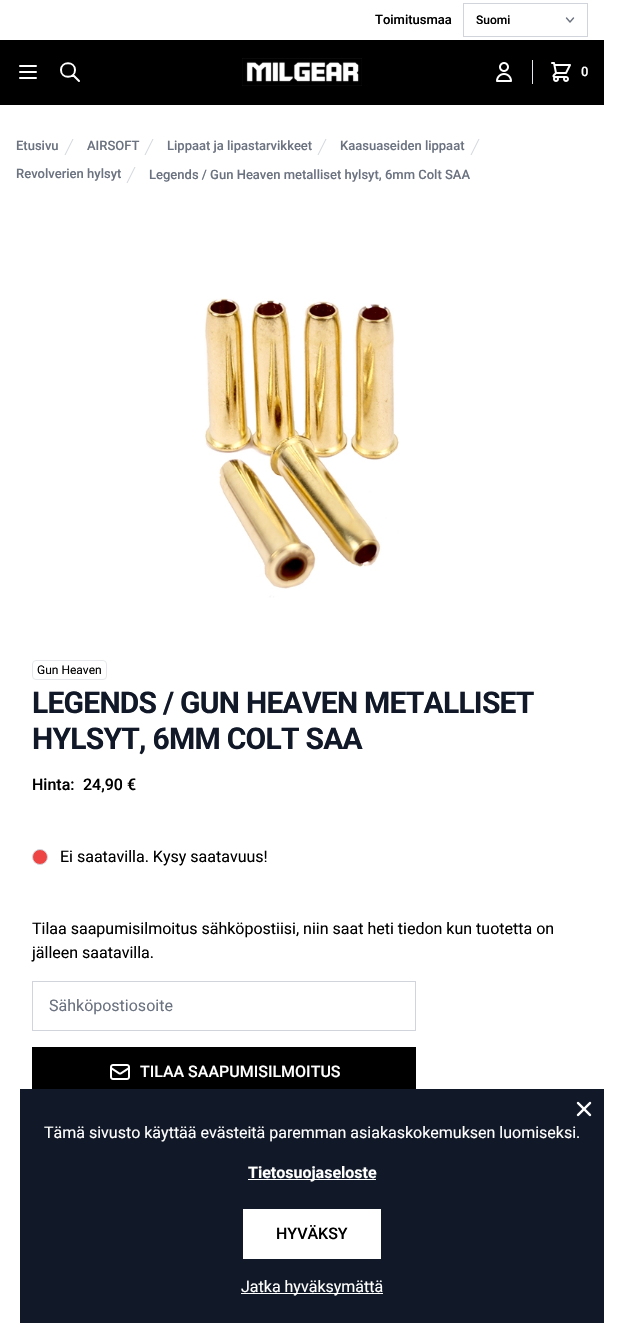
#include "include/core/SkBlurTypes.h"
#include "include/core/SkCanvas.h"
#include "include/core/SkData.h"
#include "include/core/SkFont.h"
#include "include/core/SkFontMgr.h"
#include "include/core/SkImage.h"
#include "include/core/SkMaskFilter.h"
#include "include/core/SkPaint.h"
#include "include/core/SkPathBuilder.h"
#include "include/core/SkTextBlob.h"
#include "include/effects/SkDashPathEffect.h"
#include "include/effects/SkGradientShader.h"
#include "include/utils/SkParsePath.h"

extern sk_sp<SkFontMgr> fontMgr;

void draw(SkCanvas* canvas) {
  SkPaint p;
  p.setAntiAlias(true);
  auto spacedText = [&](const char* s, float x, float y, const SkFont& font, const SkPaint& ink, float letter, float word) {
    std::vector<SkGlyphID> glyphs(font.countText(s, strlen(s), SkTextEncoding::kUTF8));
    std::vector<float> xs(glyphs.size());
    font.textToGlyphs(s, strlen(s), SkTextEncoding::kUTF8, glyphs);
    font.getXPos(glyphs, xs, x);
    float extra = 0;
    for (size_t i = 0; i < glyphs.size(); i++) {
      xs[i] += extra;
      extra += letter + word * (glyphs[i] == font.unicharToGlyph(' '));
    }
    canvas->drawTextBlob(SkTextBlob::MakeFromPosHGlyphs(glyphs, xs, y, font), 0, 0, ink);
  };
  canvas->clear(SK_ColorWHITE);
  p.setStyle(SkPaint::kStroke_Style);
  p.setStrokeWidth(1.4f);
  p.setStrokeCap(SkPaint::kRound_Cap);
  p.setStrokeJoin(SkPaint::kRound_Join);
  p.setColor(SkColorSetRGB(107, 114, 128));
  canvas->drawPath(SkPathBuilder().moveTo(566.5f, 18).lineTo(570, 22).lineTo(573.5f, 18).detach(), p);
  p.setStrokeWidth(1);
  p.setStrokeCap(SkPaint::kButt_Cap);
  p.setStrokeJoin(SkPaint::kMiter_Join);
  p.setColor(SkColorSetRGB(209, 213, 219));
  canvas->drawRect(SkRect::MakeLTRB(463.5f, 3.5f, 587.5f, 36.5f), p);
  p.setStyle(SkPaint::kFill_Style);
  p.setColor(SK_ColorBLACK);
  canvas->drawRect(SkRect::MakeLTRB(0, 40, 604, 105), p);
  p.setStyle(SkPaint::kStroke_Style);
  p.setStrokeWidth(2);
  p.setStrokeCap(SkPaint::kRound_Cap);
  p.setStrokeJoin(SkPaint::kRound_Join);
  p.setColor(SK_ColorWHITE);
  canvas->drawPath(SkPathBuilder().moveTo(20, 66).lineTo(36, 66).moveTo(20, 72).lineTo(36, 72).moveTo(20, 78).lineTo(36, 78).moveTo(79, 81).lineTo(73, 75).moveTo(75, 70).cubicTo(75, 79, 61, 79, 61, 70).cubicTo(61, 61, 75, 61, 75, 70).close().detach(), p);
  canvas->drawImageRect(SkImages::DeferredFromEncodedData(SkData::MakeFromFileName("images/1.png")), SkRect::MakeLTRB(242, 58, 362, 86), SkSamplingOptions());
  canvas->drawImageRect(SkImages::DeferredFromEncodedData(SkData::MakeFromFileName("images/2.png")), SkRect::MakeLTRB(496, 62, 512, 82), SkSamplingOptions());
  p.setStyle(SkPaint::kFill_Style);
  p.setColor(SkColorSetRGB(229, 231, 235));
  canvas->drawRect(SkRect::MakeLTRB(532, 60, 533, 84), p);
  canvas->drawImageRect(SkImages::DeferredFromEncodedData(SkData::MakeFromFileName("images/3.png")), SkRect::MakeLTRB(551, 62, 571, 82), SkSamplingOptions());
  p.setColor(SkColorSetRGB(209, 213, 219));
  canvas->drawPath(SkPathBuilder().moveTo(64.5f, 155).lineTo(72.5f, 139).lineTo(73.5f, 139).lineTo(65.5f, 155).close().detach(), p);
  canvas->drawPath(SkPathBuilder().moveTo(144.5f, 155).lineTo(152.5f, 139).lineTo(153.5f, 139).lineTo(145.5f, 155).close().detach(), p);
  canvas->drawPath(SkPathBuilder().moveTo(317.5f, 155).lineTo(325.5f, 139).lineTo(326.5f, 139).lineTo(318.5f, 155).close().detach(), p);
  canvas->drawPath(SkPathBuilder().moveTo(470.5f, 155).lineTo(478.5f, 139).lineTo(479.5f, 139).lineTo(471.5f, 155).close().detach(), p);
  canvas->drawPath(SkPathBuilder().moveTo(126.5f, 183).lineTo(134.5f, 167).lineTo(135.5f, 167).lineTo(127.5f, 183).close().detach(), p);
  canvas->drawImageRect(SkImages::DeferredFromEncodedData(SkData::MakeFromFileName("images/4.png")), SkRect::MakeLTRB(204, 298, 400, 598), SkSamplingOptions());
  p.setStyle(SkPaint::kStroke_Style);
  p.setStrokeWidth(1);
  p.setStrokeCap(SkPaint::kButt_Cap);
  p.setStrokeJoin(SkPaint::kMiter_Join);
  p.setColor(SkColorSetRGB(229, 231, 235));
  canvas->drawRoundRect(SkRect::MakeLTRB(32.5f, 660.5f, 106.5f, 679.5f), 3.5f, 3.5f, p);
  p.setStyle(SkPaint::kFill_Style);
  p.setColor(SkColorSetRGB(239, 68, 68));
  canvas->drawCircle(40, 857, 7.5f, p);
  p.setStyle(SkPaint::kStroke_Style);
  p.setColor(SkColorSetRGB(209, 213, 219));
  canvas->drawCircle(40, 857, 7.5f, p);
  canvas->drawRect(SkRect::MakeLTRB(32.5f, 981.5f, 415.5f, 1030.5f), p);
  p.setStyle(SkPaint::kFill_Style);
  p.setColor(SK_ColorBLACK);
  canvas->drawRect(SkRect::MakeLTRB(32, 1047, 416, 1089), p);
  canvas->drawImageRect(SkImages::DeferredFromEncodedData(SkData::MakeFromFileName("images/5.png")), SkRect::MakeLTRB(110, 1064, 130, 1080), SkSamplingOptions());
  p.setColor(SkColorSetRGB(17, 24, 39));
  canvas->drawRect(SkRect::MakeLTRB(20, 1089, 604, 1323), p);
  canvas->drawImageRect(SkImages::DeferredFromEncodedData(SkData::MakeFromFileName("images/6.png")), SkRect::MakeLTRB(576, 1101, 592, 1117), SkSamplingOptions());
  p.setColor(SK_ColorWHITE);
  canvas->drawRect(SkRect::MakeLTRB(248, 1179, 376, 1180), p);
  canvas->drawRect(SkRect::MakeLTRB(243, 1209, 381, 1259), p);
  canvas->drawRect(SkRect::MakeLTRB(241, 1293, 383, 1294), p);
  SkFont font1(fontMgr->matchFamilyStyle("Roboto", SkFontStyle(500, SkFontStyle::kNormal_Width, SkFontStyle::kUpright_Slant)), 13);
  font1.setSubpixel(true);
  p.setColor(SK_ColorBLACK);
  canvas->drawString("Toimitusmaa", 375, 24, font1, p);
  SkFont font2(fontMgr->matchFamilyStyle("Roboto", SkFontStyle(500, SkFontStyle::kNormal_Width, SkFontStyle::kUpright_Slant)), 12);
  font2.setSubpixel(true);
  canvas->drawString("Suomi", 476, 24, font2, p);
  p.setColor(SK_ColorWHITE);
  canvas->drawString("0", 581, 76, font1, p);
  p.setColor(SkColorSetRGB(107, 114, 128));
  canvas->drawString("Etusivu", 16, 150, font1, p);
  canvas->drawString("AIRSOFT", 87, 150, font1, p);
  canvas->drawString("Lippaat ja lipastarvikkeet", 167, 150, font1, p);
  canvas->drawString("Kaasuaseiden lippaat", 340, 150, font1, p);
  canvas->drawString("Revolverien hylsyt", 16, 178, font1, p);
  canvas->drawString("Legends / Gun Heaven metalliset hylsyt, 6mm Colt SAA", 149, 179, font1, p);
  SkFont font3(fontMgr->matchFamilyStyle("Roboto", SkFontStyle::Normal()), 12);
  font3.setSubpixel(true);
  p.setColor(SK_ColorBLACK);
  canvas->drawString("Gun Heaven", 37, 674, font3, p);
  SkFont font4(fontMgr->matchFamilyStyle("Roboto", SkFontStyle::Bold()), 30);
  font4.setSubpixel(true);
  p.setColor(SkColorSetRGB(17, 24, 39));
  spacedText("LEGENDS / GUN HEAVEN METALLISET", 32, 713, font4, p, -0.75f, 0);
  spacedText("HYLSYT, 6MM COLT SAA", 32, 749, font4, p, -0.75f, 0);
  SkFont font5(fontMgr->matchFamilyStyle("Roboto", SkFontStyle(500, SkFontStyle::kNormal_Width, SkFontStyle::kUpright_Slant)), 16);
  font5.setSubpixel(true);
  p.setColor(SK_ColorBLACK);
  canvas->drawString("Hinta:", 32, 790, font5, p);
  canvas->drawString("24,90 €", 83, 790, font5, p);
  SkFont font6(fontMgr->matchFamilyStyle("Roboto", SkFontStyle::Normal()), 16);
  font6.setSubpixel(true);
  canvas->drawString("Ei saatavilla. Kysy saatavuus!", 60, 862, font6, p);
  canvas->drawString("Tilaa saapumisilmoitus sähköpostiisi, niin saat heti tiedon kun tuotetta on", 32, 934, font6, p);
  canvas->drawString("jälleen saatavilla.", 32, 958, font6, p);
  p.setColor(SkColorSetRGB(107, 114, 128));
  canvas->drawString("Sähköpostiosoite", 49, 1011, font6, p);
  p.setColor(SK_ColorWHITE);
  canvas->drawString("TILAA SAAPUMISILMOITUS", 140, 1077, font5, p);
  canvas->drawString("Tämä sivusto käyttää evästeitä paremman asiakaskokemuksen luomiseksi.", 44, 1138, font6, p);
  SkFont font7(fontMgr->matchFamilyStyle("Roboto", SkFontStyle::Bold()), 16);
  font7.setSubpixel(true);
  canvas->drawString("Tietosuojaseloste", 248, 1178, font7, p);
  p.setColor(SK_ColorBLACK);
  canvas->drawString("HYVÄKSY", 276, 1239, font5, p);
  p.setColor(SK_ColorWHITE);
  canvas->drawString("Jatka hyväksymättä", 241, 1292, font6, p);
}
